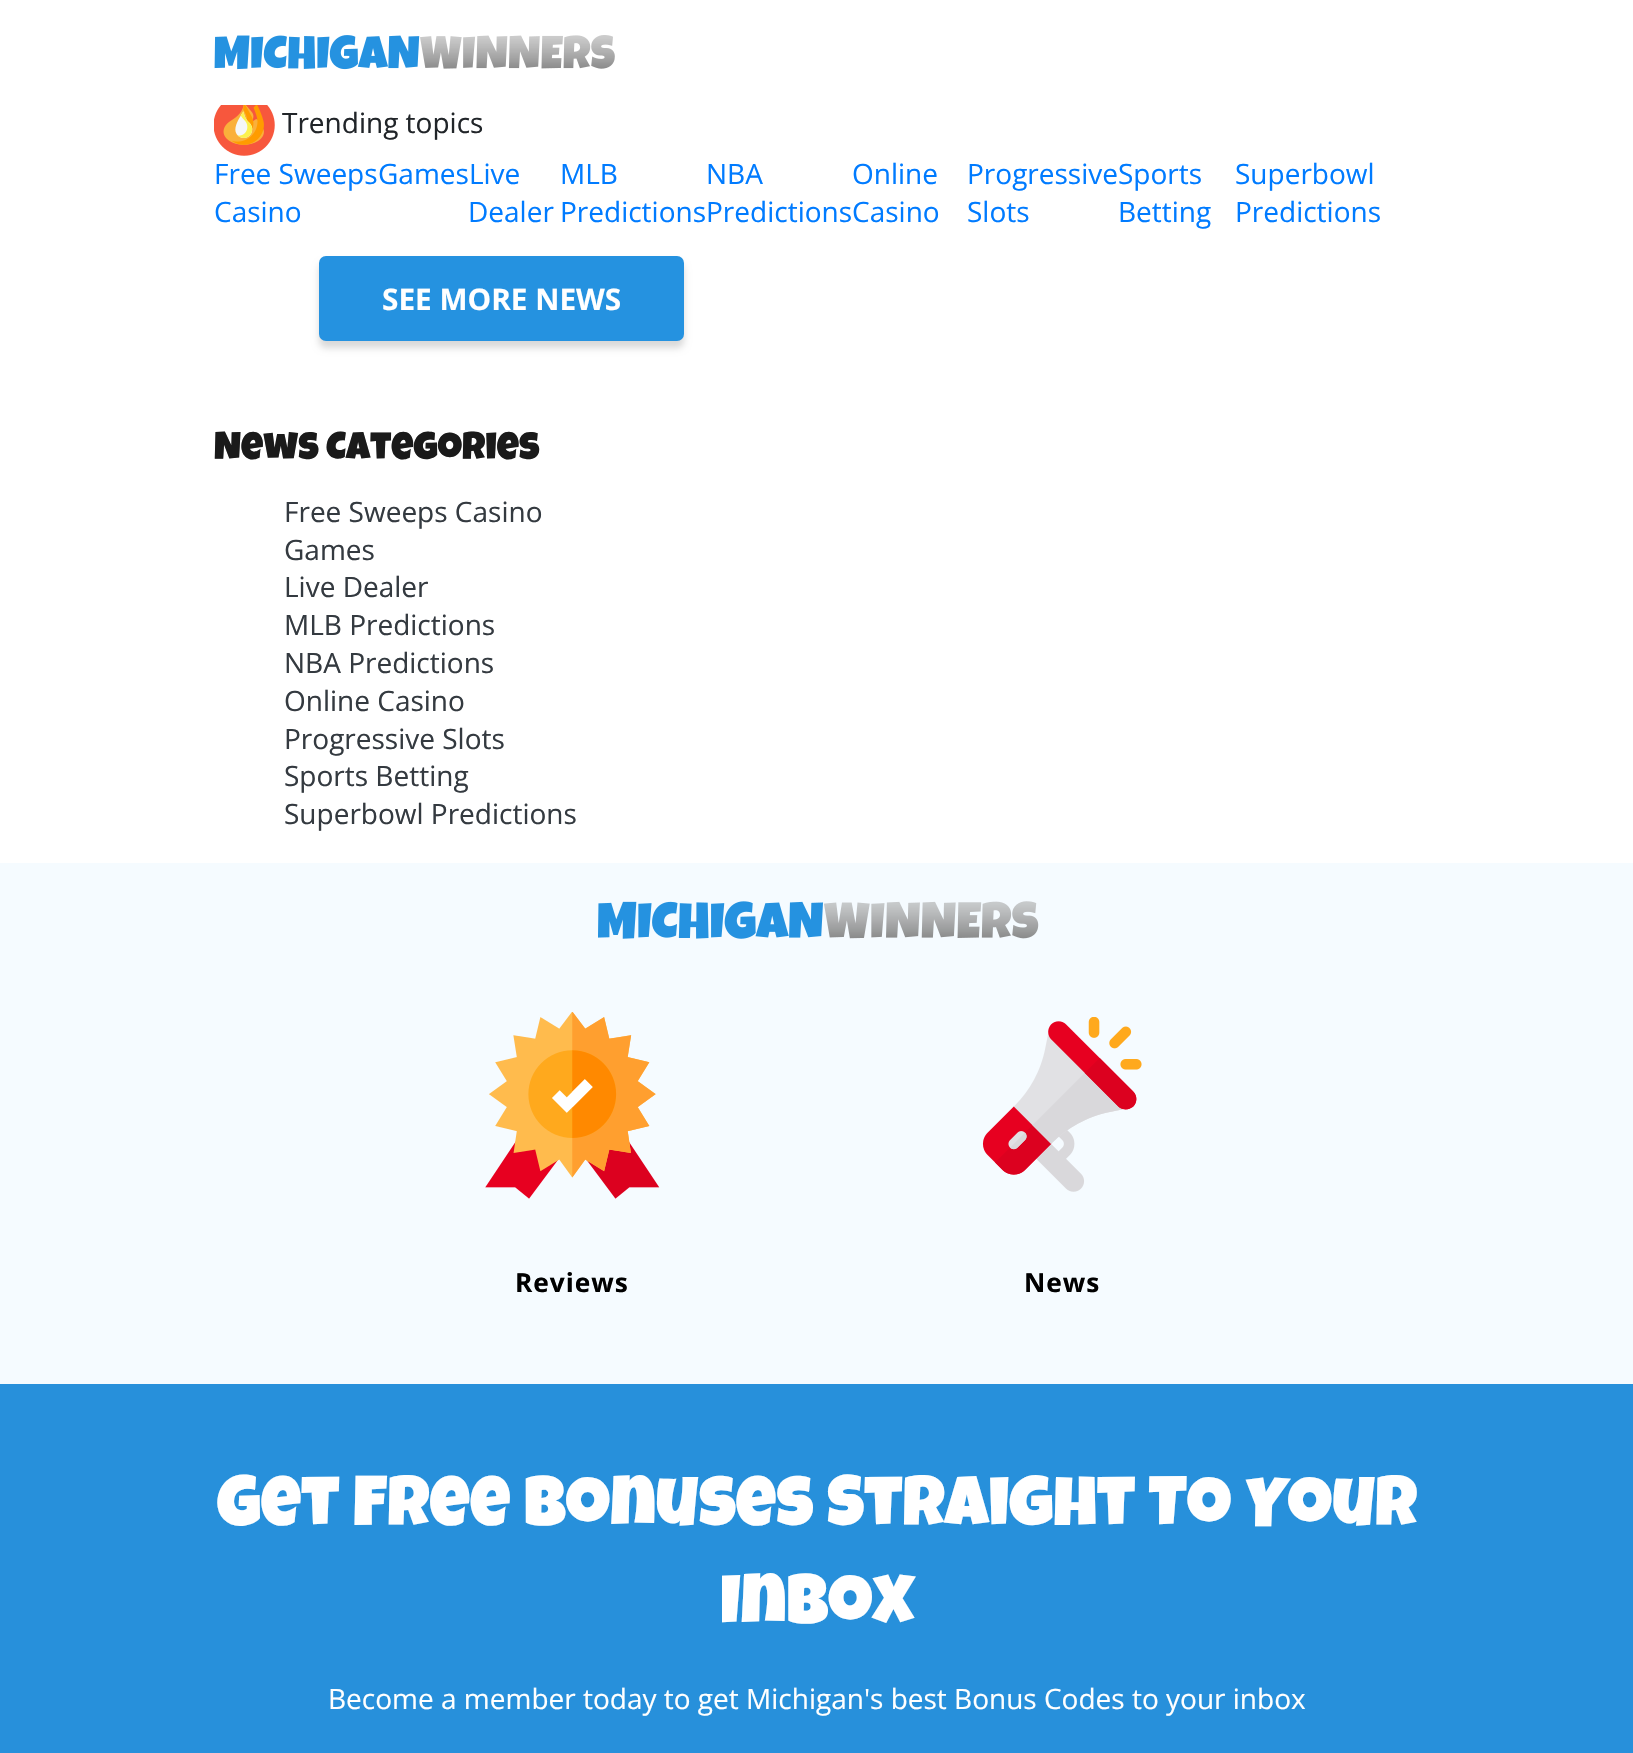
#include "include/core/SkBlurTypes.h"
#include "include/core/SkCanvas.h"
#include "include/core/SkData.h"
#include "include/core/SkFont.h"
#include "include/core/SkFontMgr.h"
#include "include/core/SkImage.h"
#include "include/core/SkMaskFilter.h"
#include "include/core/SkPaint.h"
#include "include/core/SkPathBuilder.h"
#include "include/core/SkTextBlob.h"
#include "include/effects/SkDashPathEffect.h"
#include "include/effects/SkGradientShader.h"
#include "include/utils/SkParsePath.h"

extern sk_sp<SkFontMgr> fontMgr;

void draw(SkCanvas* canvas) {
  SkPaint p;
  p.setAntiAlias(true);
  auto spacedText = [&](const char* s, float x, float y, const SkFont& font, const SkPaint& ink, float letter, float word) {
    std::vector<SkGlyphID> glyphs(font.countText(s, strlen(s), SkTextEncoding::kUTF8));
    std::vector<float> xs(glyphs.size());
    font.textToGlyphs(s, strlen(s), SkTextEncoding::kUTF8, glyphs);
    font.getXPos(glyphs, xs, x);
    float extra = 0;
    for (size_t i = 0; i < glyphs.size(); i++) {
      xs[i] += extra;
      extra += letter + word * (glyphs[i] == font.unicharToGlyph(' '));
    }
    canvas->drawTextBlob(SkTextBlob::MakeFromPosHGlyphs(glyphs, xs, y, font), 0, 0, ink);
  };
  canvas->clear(SK_ColorWHITE);
  canvas->drawImageRect(SkImages::DeferredFromEncodedData(SkData::MakeFromFileName("images/1.png")), SkRect::MakeLTRB(214, 35, 615, 70), SkSamplingOptions());
  canvas->drawImageRect(SkImages::DeferredFromEncodedData(SkData::MakeFromFileName("images/2.png")), SkRect::MakeLTRB(214, 105, 275, 156), SkSamplingOptions());
  p.setColor(SkColorSetARGB(38, 0, 0, 0));
  p.setMaskFilter(SkMaskFilter::MakeBlur(kNormal_SkBlurStyle, 3.5f));
  canvas->drawRoundRect(SkRect::MakeLTRB(319, 263, 684, 348), 7, 7, p);
  p.setMaskFilter(nullptr);
  p.setColor(SkColorSetRGB(37, 146, 224));
  canvas->drawRoundRect(SkRect::MakeLTRB(319, 256, 684, 341), 7, 7, p);
  p.setColor(SkColorSetRGB(245, 251, 255));
  canvas->drawRect(SkRect::MakeLTRB(0, 863, 1633, 1384), p);
  canvas->drawImageRect(SkImages::DeferredFromEncodedData(SkData::MakeFromFileName("images/3.png")), SkRect::MakeLTRB(598, 901, 1039, 939), SkSamplingOptions());
  canvas->drawImageRect(SkImages::DeferredFromEncodedData(SkData::MakeFromFileName("images/4.png")), SkRect::MakeLTRB(485, 1012, 660, 1199), SkSamplingOptions());
  canvas->drawImageRect(SkImages::DeferredFromEncodedData(SkData::MakeFromFileName("images/5.png")), SkRect::MakeLTRB(982, 1017, 1142, 1192), SkSamplingOptions());
  p.setColor(SkColorSetRGB(39, 144, 219));
  canvas->drawRect(SkRect::MakeLTRB(0, 1384, 1633, 1753), p);
  SkFont font1(fontMgr->matchFamilyStyle("Open Sans", SkFontStyle::Normal()), 28);
  font1.setSubpixel(true);
  p.setColor(SkColorSetRGB(33, 37, 41));
  canvas->drawString("Trending topics", 282, 133, font1, p);
  p.setColor(SkColorSetRGB(0, 123, 255));
  canvas->drawString("Free Sweeps", 214, 184, font1, p);
  canvas->drawString("Casino", 214, 222, font1, p);
  canvas->drawString("GamesLive", 378, 184, font1, p);
  canvas->drawString("NBA", 706, 184, font1, p);
  canvas->drawString("Online", 852, 184, font1, p);
  canvas->drawString("ProgressiveSports", 967, 184, font1, p);
  canvas->drawString("Slots", 967, 222, font1, p);
  canvas->drawString("Superbowl", 1235, 184, font1, p);
  canvas->drawString("Predictions", 1235, 222, font1, p);
  canvas->drawString("Dealer", 468, 222, font1, p);
  canvas->drawString("MLB", 560, 184, font1, p);
  canvas->drawString("PredictionsPredictionsCasino", 560, 222, font1, p);
  canvas->drawString("Betting", 1118, 222, font1, p);
  SkFont font2(fontMgr->matchFamilyStyle("Open Sans", SkFontStyle::Bold()), 29.75f);
  font2.setSubpixel(true);
  p.setColor(SK_ColorWHITE);
  canvas->drawString("SEE MORE NEWS", 382, 310, font2, p);
  SkFont font3(fontMgr->matchFamilyStyle("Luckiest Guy", SkFontStyle::Normal()), 38.5f);
  font3.setSubpixel(true);
  p.setColor(SkColorSetRGB(26, 26, 26));
  canvas->drawString("News Categories", 214, 459, font3, p);
  p.setColor(SkColorSetRGB(52, 58, 64));
  canvas->drawString("Free Sweeps Casino", 284, 522, font1, p);
  canvas->drawString("Games", 284, 560, font1, p);
  canvas->drawString("Live Dealer", 284, 597, font1, p);
  canvas->drawString("MLB Predictions", 284, 635, font1, p);
  canvas->drawString("NBA Predictions", 284, 673, font1, p);
  canvas->drawString("Online Casino", 284, 711, font1, p);
  canvas->drawString("Progressive Slots", 284, 749, font1, p);
  canvas->drawString("Sports Betting", 284, 786, font1, p);
  canvas->drawString("Superbowl Predictions", 284, 824, font1, p);
  SkFont font4(fontMgr->matchFamilyStyle("Open Sans", SkFontStyle::Bold()), 26.25f);
  font4.setSubpixel(true);
  p.setColor(SK_ColorBLACK);
  spacedText("Reviews", 515, 1292, font4, p, 1, 0);
  spacedText("News", 1024, 1292, font4, p, 1, 0);
  SkFont font5(fontMgr->matchFamilyStyle("Luckiest Guy", SkFontStyle::Normal()), 70);
  font5.setSubpixel(true);
  p.setColor(SK_ColorWHITE);
  canvas->drawString("Get Free Bonuses Straight To Your", 217, 1525, font5, p);
  canvas->drawString("Inbox", 720, 1623, font5, p);
  canvas->drawString("Become a member today to get Michigan's best Bonus Codes to your inbox", 328, 1709, font1, p);
}
